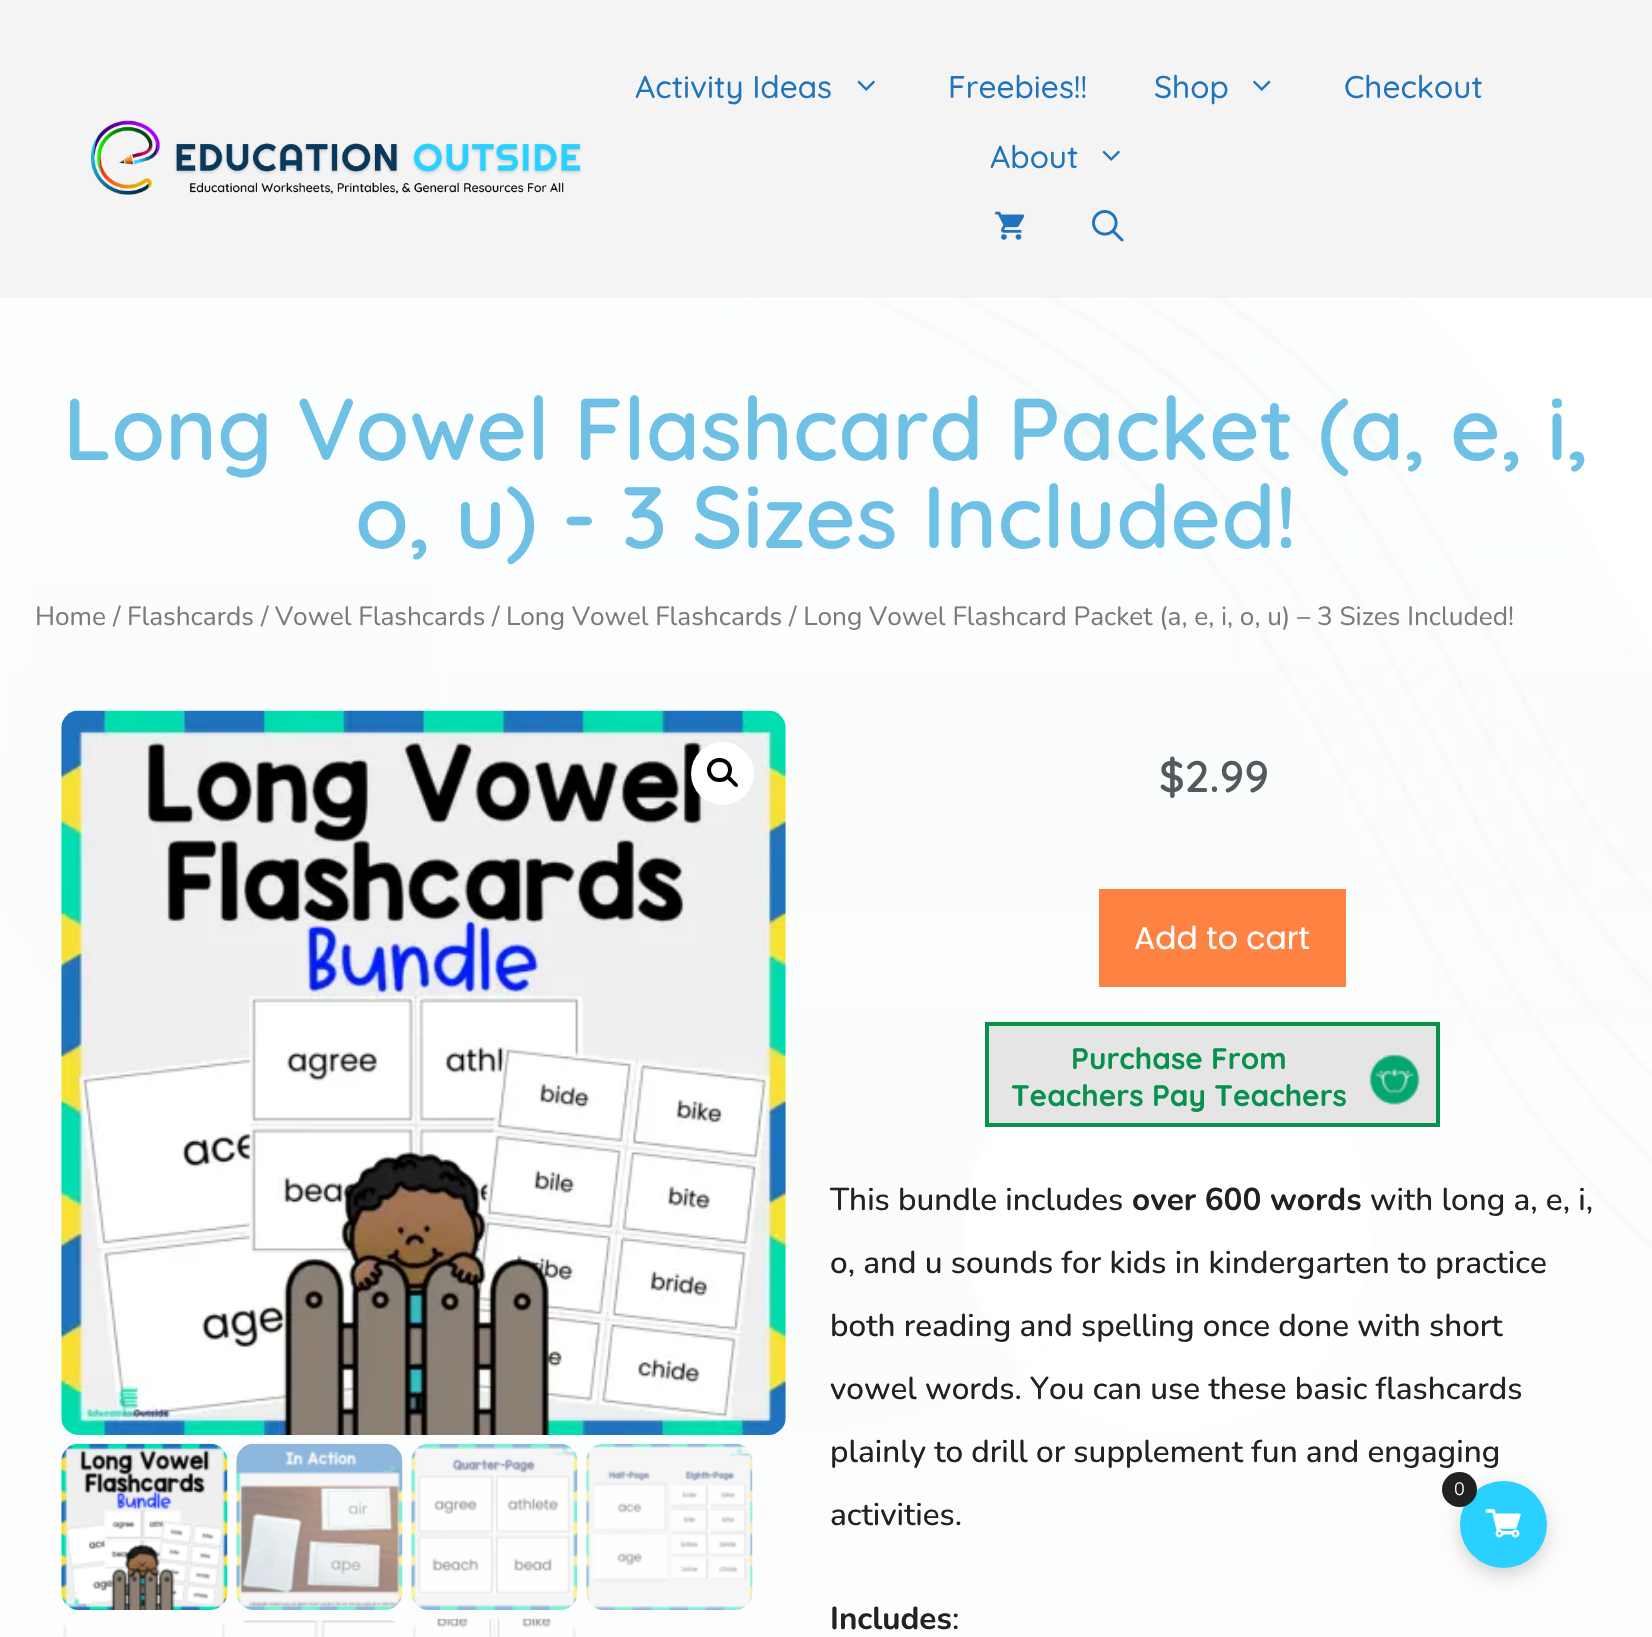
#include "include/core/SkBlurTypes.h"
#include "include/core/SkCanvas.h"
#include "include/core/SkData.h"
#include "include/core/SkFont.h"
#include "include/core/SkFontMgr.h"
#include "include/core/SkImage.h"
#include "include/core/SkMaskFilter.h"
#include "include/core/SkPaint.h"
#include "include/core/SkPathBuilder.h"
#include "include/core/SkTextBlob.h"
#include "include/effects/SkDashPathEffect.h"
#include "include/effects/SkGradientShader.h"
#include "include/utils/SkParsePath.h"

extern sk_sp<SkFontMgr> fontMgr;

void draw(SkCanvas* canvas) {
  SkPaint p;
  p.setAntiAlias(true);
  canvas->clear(SkColorSetRGB(244, 244, 244));
  canvas->drawImageRect(SkImages::DeferredFromEncodedData(SkData::MakeFromFileName("images/1.png")), SkRect::MakeLTRB(91, 120, 582, 195), SkSamplingOptions());
  canvas->drawImageRect(SkImages::DeferredFromEncodedData(SkData::MakeFromFileName("images/2.png")), SkRect::MakeLTRB(857, 80, 875, 91), SkSamplingOptions());
  canvas->drawImageRect(SkImages::DeferredFromEncodedData(SkData::MakeFromFileName("images/3.png")), SkRect::MakeLTRB(1253, 80, 1271, 91), SkSamplingOptions());
  canvas->drawImageRect(SkImages::DeferredFromEncodedData(SkData::MakeFromFileName("images/2.png")), SkRect::MakeLTRB(1102, 150, 1120, 161), SkSamplingOptions());
  canvas->drawImageRect(SkImages::DeferredFromEncodedData(SkData::MakeFromFileName("images/4.png")), SkRect::MakeLTRB(995, 211, 1025, 240), SkSamplingOptions());
  canvas->drawImageRect(SkImages::DeferredFromEncodedData(SkData::MakeFromFileName("images/5.png")), SkRect::MakeLTRB(1092, 210, 1124, 242), SkSamplingOptions());
  canvas->drawImageRect(SkImages::DeferredFromEncodedData(SkData::MakeFromFileName("images/6.png")), SkRect::MakeLTRB(0, 297, 1652, 1637), SkSamplingOptions());
  canvas->drawImageRect(SkImages::DeferredFromEncodedData(SkData::MakeFromFileName("images/7.png")), SkRect::MakeLTRB(61, 710, 786, 1435), SkSamplingOptions());
  p.setColor(SK_ColorWHITE);
  canvas->drawCircle(722.5f, 773.5f, 31.5f, p);
  p.setStyle(SkPaint::kStroke_Style);
  p.setStrokeWidth(4);
  p.setColor(SK_ColorBLACK);
  canvas->drawRoundRect(SkRect::MakeLTRB(709, 760, 730, 780), 10, 10, p);
  p.setStyle(SkPaint::kFill_Style);
  canvas->drawPath(SkPathBuilder().moveTo(727.5f, 776.5f).cubicTo(729.5f, 774.5f, 732.5f, 779, 733.5f, 780).cubicTo(734.5f, 781, 739.5f, 784.5f, 737.5f, 786.5f).cubicTo(735.5f, 788.5f, 732, 783.5f, 731, 782.5f).cubicTo(730, 781.5f, 725.5f, 778.5f, 727.5f, 776.5f).close().detach(), p);
  canvas->drawImageRect(SkImages::DeferredFromEncodedData(SkData::MakeFromFileName("images/8.png")), SkRect::MakeLTRB(61, 1443, 228, 1610), SkSamplingOptions());
  canvas->drawImageRect(SkImages::DeferredFromEncodedData(SkData::MakeFromFileName("images/9.png")), SkRect::MakeLTRB(236, 1443, 403, 1610), SkSamplingOptions());
  canvas->drawImageRect(SkImages::DeferredFromEncodedData(SkData::MakeFromFileName("images/10.png")), SkRect::MakeLTRB(411, 1443, 578, 1610), SkSamplingOptions());
  canvas->drawImageRect(SkImages::DeferredFromEncodedData(SkData::MakeFromFileName("images/11.png")), SkRect::MakeLTRB(586, 1443, 753, 1610), SkSamplingOptions());
  canvas->drawImageRect(SkImages::DeferredFromEncodedData(SkData::MakeFromFileName("images/12.png")), SkRect::MakeLTRB(63, 1624, 225, 1637), SkSamplingOptions());
  canvas->drawImageRect(SkImages::DeferredFromEncodedData(SkData::MakeFromFileName("images/13.png")), SkRect::MakeLTRB(243, 1619, 396, 1637), SkSamplingOptions());
  canvas->drawImageRect(SkImages::DeferredFromEncodedData(SkData::MakeFromFileName("images/14.png")), SkRect::MakeLTRB(413, 1618, 576, 1637), SkSamplingOptions());
  p.setColor(SkColorSetRGB(254, 131, 67));
  canvas->drawRect(SkRect::MakeLTRB(1099, 889, 1346, 987), p);
  p.setColor(SkColorSetRGB(229, 229, 229));
  canvas->drawRect(SkRect::MakeLTRB(987, 1024, 1438, 1125), p);
  p.setStyle(SkPaint::kStroke_Style);
  p.setColor(SkColorSetRGB(8, 145, 77));
  canvas->drawRect(SkRect::MakeLTRB(987, 1024, 1438, 1125), p);
  canvas->drawImageRect(SkImages::DeferredFromEncodedData(SkData::MakeFromFileName("images/15.png")), SkRect::MakeLTRB(1369, 1054, 1420, 1105), SkSamplingOptions());
  p.setStyle(SkPaint::kFill_Style);
  p.setColor(SkColorSetARGB(43, 0, 0, 0));
  p.setMaskFilter(SkMaskFilter::MakeBlur(kNormal_SkBlurStyle, 9));
  canvas->drawRoundRect(SkRect::MakeLTRB(1460, 1488, 1547, 1575), 43.5f, 43.5f, p);
  p.setMaskFilter(nullptr);
  p.setColor(SkColorSetRGB(42, 208, 255));
  canvas->drawCircle(1503.5f, 1524.5f, 43.5f, p);
  p.setColor(SkColorSetRGB(33, 33, 33));
  canvas->drawCircle(1459.5f, 1489.5f, 17.5f, p);
  canvas->drawImageRect(SkImages::DeferredFromEncodedData(SkData::MakeFromFileName("images/16.png")), SkRect::MakeLTRB(1485, 1509, 1521, 1538), SkSamplingOptions());
  SkFont font1(fontMgr->matchFamilyStyle("Quicksand", SkFontStyle(500, SkFontStyle::kNormal_Width, SkFontStyle::kUpright_Slant)), 31.5f);
  font1.setSubpixel(true);
  p.setColor(SkColorSetRGB(32, 116, 190));
  canvas->drawString("Activity Ideas", 635, 98, font1, p);
  canvas->drawString("Freebies!!", 948, 98, font1, p);
  canvas->drawString("Shop", 1154, 98, font1, p);
  canvas->drawString("Checkout", 1344, 98, font1, p);
  canvas->drawString("About", 990, 168, font1, p);
  SkFont font2(fontMgr->matchFamilyStyle("Quicksand", SkFontStyle(600, SkFontStyle::kNormal_Width, SkFontStyle::kUpright_Slant)), 87.5f);
  font2.setSubpixel(true);
  p.setColor(SkColorSetRGB(110, 193, 228));
  canvas->drawString("Long Vowel Flashcard Packet (a, e, i,", 63, 460, font2, p);
  canvas->drawString("o, u) - 3 Sizes Included!", 355, 548, font2, p);
  SkFont font3(fontMgr->matchFamilyStyle("Nunito", SkFontStyle::Normal()), 26.25f);
  font3.setSubpixel(true);
  p.setColor(SkColorSetRGB(122, 122, 122));
  canvas->drawString("Home", 35, 625, font3, p);
  canvas->drawString("/", 113, 625, font3, p);
  canvas->drawString("Flashcards", 127, 625, font3, p);
  canvas->drawString("/", 261, 625, font3, p);
  canvas->drawString("Vowel Flashcards", 275, 625, font3, p);
  canvas->drawString("/", 492, 625, font3, p);
  canvas->drawString("Long Vowel Flashcards", 506, 625, font3, p);
  canvas->drawString("/ Long Vowel Flashcard Packet (a, e, i, o, u) – 3 Sizes Included!", 789, 625, font3, p);
  SkFont font4(fontMgr->matchFamilyStyle("Quicksand", SkFontStyle(600, SkFontStyle::kNormal_Width, SkFontStyle::kUpright_Slant)), 44);
  font4.setSubpixel(true);
  p.setColor(SkColorSetRGB(84, 89, 95));
  canvas->drawString("$2.99", 1159, 792, font4, p);
  SkFont font5(fontMgr->matchFamilyStyle("Poppins", SkFontStyle::Normal()), 31.5f);
  font5.setSubpixel(true);
  p.setColor(SK_ColorWHITE);
  canvas->drawString("Add to cart", 1134, 949, font5, p);
  SkFont font6(fontMgr->matchFamilyStyle("Quicksand", SkFontStyle::Bold()), 29.75f);
  font6.setSubpixel(true);
  p.setColor(SkColorSetRGB(8, 145, 77));
  canvas->drawString("Purchase From", 1071, 1069, font6, p);
  canvas->drawString("Teachers Pay Teachers", 1011, 1106, font6, p);
  SkFont font7(fontMgr->matchFamilyStyle("Nunito", SkFontStyle(500, SkFontStyle::kNormal_Width, SkFontStyle::kUpright_Slant)), 31.5f);
  font7.setSubpixel(true);
  p.setColor(SkColorSetRGB(34, 34, 34));
  canvas->drawString("This bundle includes", 830, 1210, font7, p);
  SkFont font8(fontMgr->matchFamilyStyle("Nunito", SkFontStyle::Bold()), 31.5f);
  font8.setSubpixel(true);
  canvas->drawString("over 600 words", 1132, 1210, font8, p);
  canvas->drawString("with long a, e, i,", 1370, 1210, font7, p);
  canvas->drawString("o, and u sounds for kids in kindergarten to practice", 830, 1273, font7, p);
  canvas->drawString("both reading and spelling once done with short", 830, 1336, font7, p);
  canvas->drawString("vowel words. You can use these basic flashcards", 830, 1399, font7, p);
  canvas->drawString("plainly to drill or supplement fun and engaging", 830, 1462, font7, p);
  canvas->drawString("activities.", 830, 1525, font7, p);
  canvas->drawString("Includes", 830, 1629, font8, p);
  canvas->drawString(":", 952, 1629, font7, p);
  SkFont font9(fontMgr->matchFamilyStyle("Nunito", SkFontStyle(300, SkFontStyle::kNormal_Width, SkFontStyle::kUpright_Slant)), 18);
  font9.setSubpixel(true);
  p.setColor(SK_ColorWHITE);
  canvas->drawString("0", 1454, 1495, font9, p);
}
